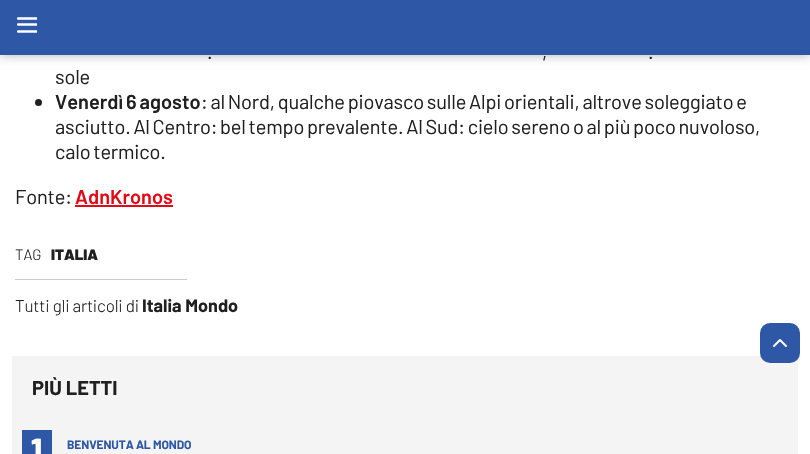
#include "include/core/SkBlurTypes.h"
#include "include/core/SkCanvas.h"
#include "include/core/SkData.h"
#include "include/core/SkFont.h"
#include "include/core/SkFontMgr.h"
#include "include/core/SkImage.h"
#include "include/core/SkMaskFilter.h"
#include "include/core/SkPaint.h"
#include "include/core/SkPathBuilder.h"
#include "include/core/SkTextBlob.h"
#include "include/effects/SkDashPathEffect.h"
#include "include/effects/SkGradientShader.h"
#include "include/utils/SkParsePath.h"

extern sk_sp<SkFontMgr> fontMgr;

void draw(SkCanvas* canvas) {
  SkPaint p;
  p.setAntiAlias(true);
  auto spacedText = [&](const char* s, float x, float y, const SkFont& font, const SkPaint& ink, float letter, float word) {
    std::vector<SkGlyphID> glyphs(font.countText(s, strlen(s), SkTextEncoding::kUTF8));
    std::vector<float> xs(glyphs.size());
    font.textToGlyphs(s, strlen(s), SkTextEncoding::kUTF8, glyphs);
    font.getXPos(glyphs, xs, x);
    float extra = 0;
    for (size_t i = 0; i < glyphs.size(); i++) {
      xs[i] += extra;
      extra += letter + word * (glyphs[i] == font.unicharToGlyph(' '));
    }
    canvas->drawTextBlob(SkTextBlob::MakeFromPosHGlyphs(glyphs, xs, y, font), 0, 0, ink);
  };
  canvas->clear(SK_ColorWHITE);
  p.setColor(SkColorSetARGB(77, 0, 0, 0));
  p.setMaskFilter(SkMaskFilter::MakeBlur(kNormal_SkBlurStyle, 5));
  canvas->drawRect(SkRect::MakeLTRB(0, 0, 810, 55), p);
  p.setMaskFilter(nullptr);
  p.setColor(SkColorSetRGB(46, 88, 166));
  canvas->drawRect(SkRect::MakeLTRB(0, 0, 810, 55), p);
  canvas->save();
  canvas->clipRect(SkRect::MakeLTRB(17, 13, 37, 38));
  p.setStyle(SkPaint::kStroke_Style);
  p.setStrokeWidth(2.3f);
  p.setStrokeCap(SkPaint::kRound_Cap);
  p.setColor(SK_ColorWHITE);
  canvas->drawPath(SkPathBuilder().moveTo(18, 18.5f).lineTo(37, 18.5f).moveTo(18, 24.5f).lineTo(37, 24.5f).moveTo(18, 31.5f).lineTo(37, 31.5f).detach(), p);
  canvas->restore();
  p.setStyle(SkPaint::kFill_Style);
  p.setColor(SkColorSetRGB(33, 32, 32));
  canvas->drawCircle(38.5f, 102.5f, 3.5f, p);
  p.setColor(SkColorSetRGB(225, 11, 24));
  canvas->drawRect(SkRect::MakeLTRB(75, 205, 173, 207), p);
  p.setColor(SkColorSetRGB(204, 204, 204));
  canvas->drawRect(SkRect::MakeLTRB(15, 279, 187, 280), p);
  p.setColor(SkColorSetRGB(244, 244, 244));
  canvas->drawRect(SkRect::MakeLTRB(12, 356, 798, 454), p);
  p.setColor(SkColorSetRGB(46, 88, 166));
  canvas->drawRect(SkRect::MakeLTRB(22, 430, 52, 454), p);
  canvas->drawRoundRect(SkRect::MakeLTRB(760, 323, 800, 363), 10, 10, p);
  p.setStyle(SkPaint::kStroke_Style);
  p.setStrokeWidth(2);
  p.setStrokeJoin(SkPaint::kRound_Join);
  p.setColor(SK_ColorWHITE);
  canvas->drawPath(SkPathBuilder().moveTo(774, 346).lineTo(780, 340).lineTo(786, 346).detach(), p);
  SkFont font1(fontMgr->matchFamilyStyle("Barlow", SkFontStyle::Normal()), 20);
  font1.setSubpixel(true);
  p.setStyle(SkPaint::kFill_Style);
  p.setColor(SkColorSetRGB(33, 32, 32));
  spacedText(".", 207, 59, font1, p, -0.17f, -1);
  spacedText(",", 542, 59, font1, p, -0.17f, -1);
  spacedText(".", 648, 59, font1, p, -0.17f, -1);
  spacedText("sole", 55, 84, font1, p, -0.17f, 0);
  SkFont font2(fontMgr->matchFamilyStyle("Barlow", SkFontStyle(600, SkFontStyle::kNormal_Width, SkFontStyle::kUpright_Slant)), 20);
  font2.setSubpixel(true);
  spacedText("Venerdì 6 agosto", 55, 109, font2, p, 0, -1);
  spacedText(": al Nord, qualche piovasco sulle Alpi orientali, altrove soleggiato e", 201, 109, font1, p, -0.17f, -1);
  spacedText("asciutto. Al Centro: bel tempo prevalente. Al Sud: cielo sereno o al più poco nuvoloso,", 55, 134, font1, p, -0.17f, -1);
  spacedText("calo termico.", 55, 159, font1, p, -0.17f, -1);
  spacedText("Fonte:", 15, 204, font1, p, -0.17f, 0);
  p.setColor(SkColorSetRGB(225, 11, 24));
  canvas->drawString("AdnKronos", 75, 204, font2, p);
  SkFont font3(fontMgr->matchFamilyStyle("Barlow", SkFontStyle(300, SkFontStyle::kNormal_Width, SkFontStyle::kUpright_Slant)), 15);
  font3.setSubpixel(true);
  p.setColor(SkColorSetRGB(33, 32, 32));
  spacedText("TAG", 15, 260, font3, p, -0.1f, 0);
  SkFont font4(fontMgr->matchFamilyStyle("Barlow", SkFontStyle(900, SkFontStyle::kNormal_Width, SkFontStyle::kUpright_Slant)), 15);
  font4.setSubpixel(true);
  canvas->drawString("ITALIA", 51, 260, font4, p);
  SkFont font5(fontMgr->matchFamilyStyle("Barlow", SkFontStyle(300, SkFontStyle::kNormal_Width, SkFontStyle::kUpright_Slant)), 17);
  font5.setSubpixel(true);
  spacedText("Tutti gli articoli di", 15, 312, font5, p, -0.17f, 0);
  SkFont font6(fontMgr->matchFamilyStyle("Barlow", SkFontStyle::Bold()), 18);
  font6.setSubpixel(true);
  canvas->drawString("Italia Mondo", 142, 312, font6, p);
  SkFont font7(fontMgr->matchFamilyStyle("Barlow", SkFontStyle::Bold()), 20);
  font7.setSubpixel(true);
  canvas->drawString("PIÙ LETTI", 32, 395, font7, p);
  SkFont font8(fontMgr->matchFamilyStyle("Barlow Semi Condensed", SkFontStyle::Bold()), 36);
  font8.setSubpixel(true);
  p.setColor(SK_ColorWHITE);
  canvas->drawString("1", 31, 464, font8, p);
  SkFont font9(fontMgr->matchFamilyStyle("Barlow", SkFontStyle::Bold()), 12);
  font9.setSubpixel(true);
  p.setColor(SkColorSetRGB(46, 88, 166));
  spacedText("BENVENUTA AL MONDO", 67, 449, font9, p, -0.1f, 0);
}
